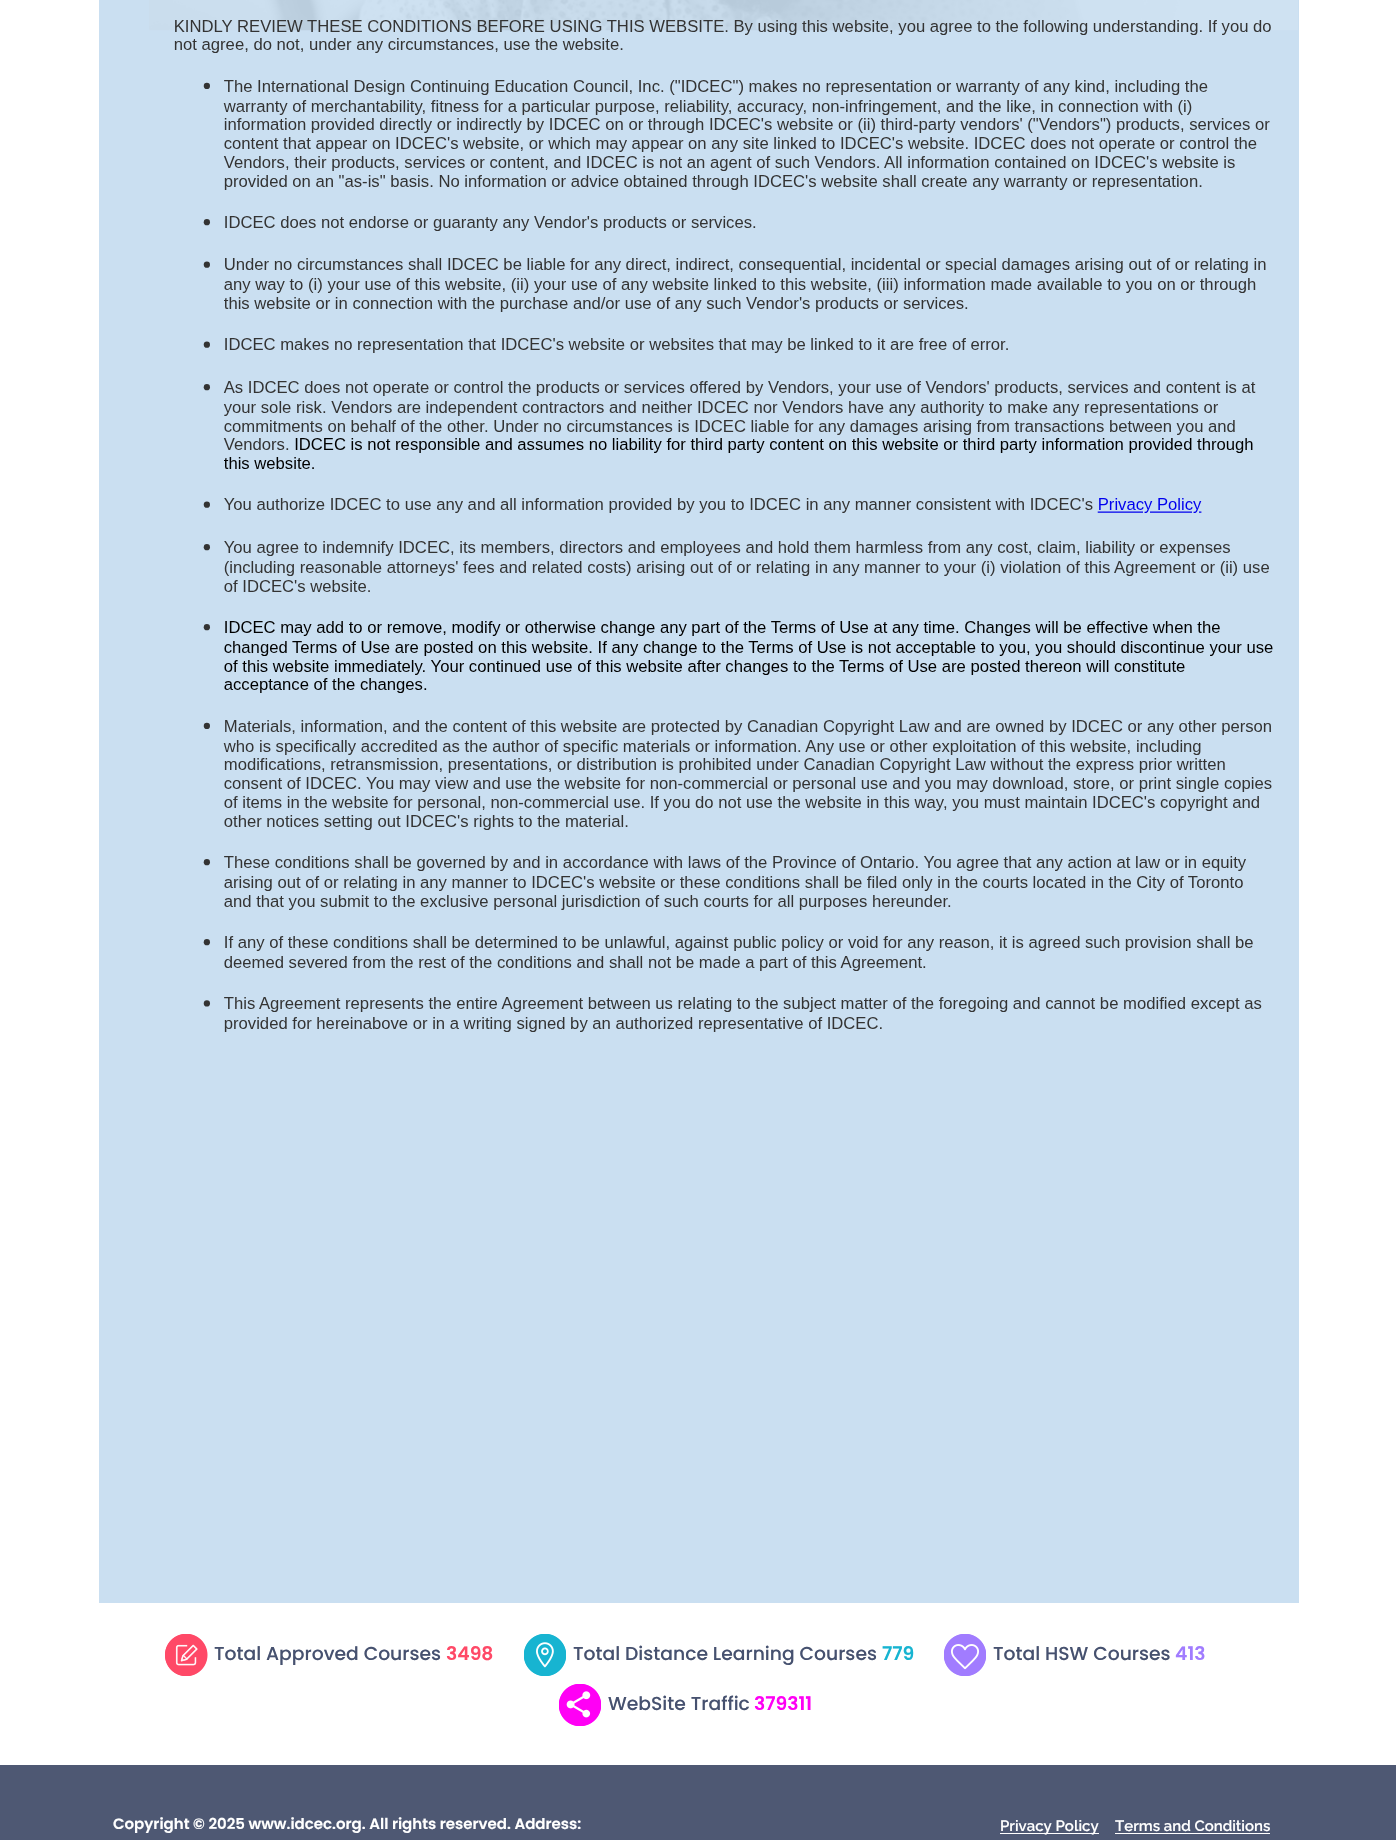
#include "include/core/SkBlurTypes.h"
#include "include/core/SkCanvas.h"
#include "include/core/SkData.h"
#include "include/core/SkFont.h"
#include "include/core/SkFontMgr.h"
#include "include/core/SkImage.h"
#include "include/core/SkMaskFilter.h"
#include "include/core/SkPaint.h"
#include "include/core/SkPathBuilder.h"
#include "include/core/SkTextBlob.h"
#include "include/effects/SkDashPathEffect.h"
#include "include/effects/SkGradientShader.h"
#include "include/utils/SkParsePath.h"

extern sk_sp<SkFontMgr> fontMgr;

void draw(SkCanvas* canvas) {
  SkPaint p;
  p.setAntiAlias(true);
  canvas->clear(SkColorSetRGB(78, 88, 115));
  p.setColor(SK_ColorWHITE);
  canvas->drawRect(SkRect::MakeLTRB(0, 0, 1396, 1765), p);
  p.setColor(SkColorSetRGB(202, 223, 241));
  canvas->drawRect(SkRect::MakeLTRB(99, 0, 1299, 1603), p);
  canvas->drawImageRect(SkImages::DeferredFromEncodedData(SkData::MakeFromFileName("images/1.png")), SkRect::MakeLTRB(149, 0, 1298, 31), SkSamplingOptions());
  canvas->drawImageRect(SkImages::DeferredFromEncodedData(SkData::MakeFromFileName("images/2.png")), SkRect::MakeLTRB(174, 20, 1273, 1032), SkSamplingOptions());
  canvas->drawImageRect(SkImages::DeferredFromEncodedData(SkData::MakeFromFileName("images/3.png")), SkRect::MakeLTRB(165, 1634, 208, 1676), SkSamplingOptions());
  canvas->drawImageRect(SkImages::DeferredFromEncodedData(SkData::MakeFromFileName("images/4.png")), SkRect::MakeLTRB(524, 1634, 566, 1676), SkSamplingOptions());
  canvas->drawImageRect(SkImages::DeferredFromEncodedData(SkData::MakeFromFileName("images/5.png")), SkRect::MakeLTRB(944, 1634, 986, 1676), SkSamplingOptions());
  canvas->drawImageRect(SkImages::DeferredFromEncodedData(SkData::MakeFromFileName("images/6.png")), SkRect::MakeLTRB(559, 1684, 601, 1726), SkSamplingOptions());
  p.setColor(SK_ColorWHITE);
  canvas->drawRect(SkRect::MakeLTRB(1000, 1833, 1099, 1834), p);
  canvas->drawRect(SkRect::MakeLTRB(1115, 1833, 1270, 1834), p);
  SkFont font1(fontMgr->matchFamilyStyle("Poppins", SkFontStyle(500, SkFontStyle::kNormal_Width, SkFontStyle::kUpright_Slant)), 18.75f);
  font1.setSubpixel(true);
  p.setColor(SkColorSetRGB(70, 81, 111));
  canvas->drawString("Total Approved Courses", 214, 1660, font1, p);
  SkFont font2(fontMgr->matchFamilyStyle("Poppins", SkFontStyle(600, SkFontStyle::kNormal_Width, SkFontStyle::kUpright_Slant)), 18.75f);
  font2.setSubpixel(true);
  p.setColor(SkColorSetRGB(255, 73, 103));
  canvas->drawString("3498", 446, 1660, font2, p);
  p.setColor(SkColorSetRGB(70, 81, 111));
  canvas->drawString("Total Distance Learning Courses", 573, 1660, font1, p);
  p.setColor(SkColorSetRGB(23, 180, 209));
  canvas->drawString("779", 882, 1660, font2, p);
  p.setColor(SkColorSetRGB(70, 81, 111));
  canvas->drawString("Total HSW Courses", 993, 1660, font1, p);
  p.setColor(SkColorSetRGB(161, 124, 255));
  canvas->drawString("413", 1175, 1660, font2, p);
  p.setColor(SkColorSetRGB(70, 81, 111));
  canvas->drawString("WebSite Traffic", 608, 1710, font1, p);
  p.setColor(SkColorSetRGB(255, 0, 245));
  canvas->drawString("379311", 754, 1710, font2, p);
  SkFont font3(fontMgr->matchFamilyStyle("Poppins", SkFontStyle(600, SkFontStyle::kNormal_Width, SkFontStyle::kUpright_Slant)), 15);
  font3.setSubpixel(true);
  p.setColor(SK_ColorWHITE);
  canvas->drawString("Copyright © 2025 www.idcec.org. All rights reserved. Address:", 113, 1829, font3, p);
  SkFont font4(fontMgr->matchFamilyStyle("Raleway", SkFontStyle(600, SkFontStyle::kNormal_Width, SkFontStyle::kUpright_Slant)), 15);
  font4.setSubpixel(true);
  canvas->drawString("Privacy Policy", 1000, 1831, font4, p);
  canvas->drawString("Terms and Conditions", 1115, 1831, font4, p);
}
